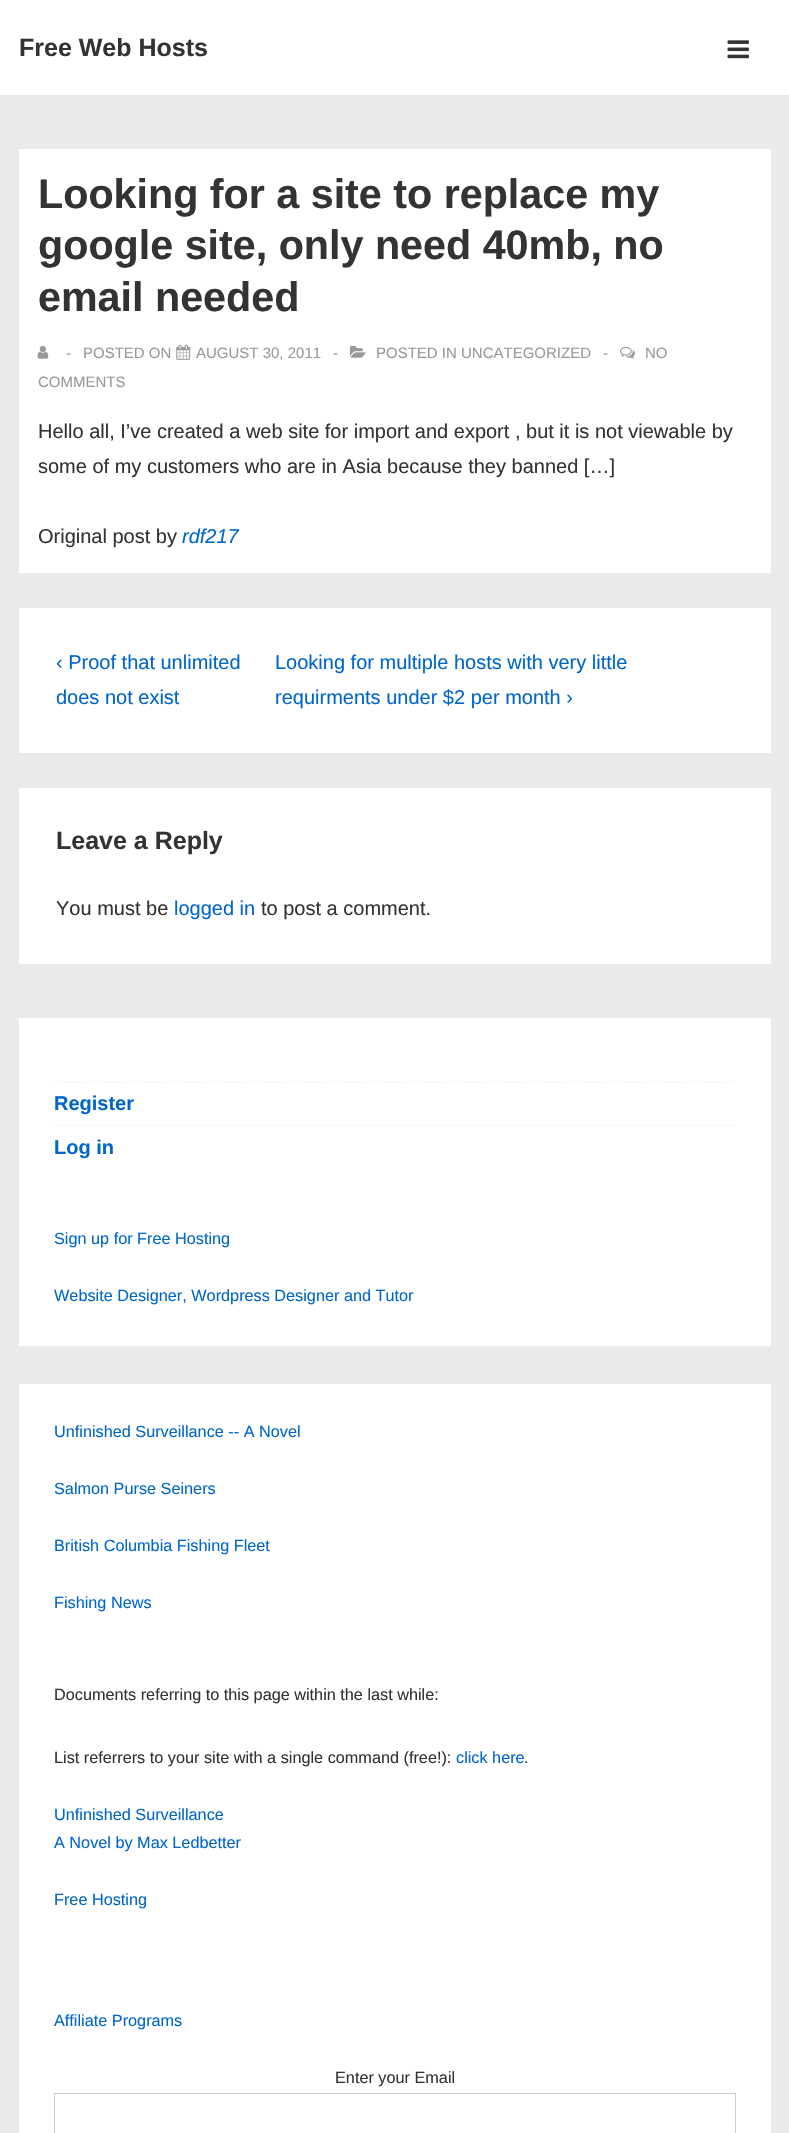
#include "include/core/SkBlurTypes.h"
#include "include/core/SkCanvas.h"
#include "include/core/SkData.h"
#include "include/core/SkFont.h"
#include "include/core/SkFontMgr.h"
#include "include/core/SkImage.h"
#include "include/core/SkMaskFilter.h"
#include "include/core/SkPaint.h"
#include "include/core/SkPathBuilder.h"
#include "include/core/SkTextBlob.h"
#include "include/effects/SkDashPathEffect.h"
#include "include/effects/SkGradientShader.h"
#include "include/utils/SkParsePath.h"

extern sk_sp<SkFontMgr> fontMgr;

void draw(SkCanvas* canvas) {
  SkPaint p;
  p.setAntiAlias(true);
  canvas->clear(SkColorSetRGB(234, 234, 234));
  p.setColor(SK_ColorWHITE);
  canvas->drawRect(SkRect::MakeLTRB(0, 0, 789, 95), p);
  canvas->drawImageRect(SkImages::DeferredFromEncodedData(SkData::MakeFromFileName("images/1.png")), SkRect::MakeLTRB(727, 40, 749, 59), SkSamplingOptions());
  canvas->drawRect(SkRect::MakeLTRB(19, 149, 771, 573), p);
  canvas->drawImageRect(SkImages::DeferredFromEncodedData(SkData::MakeFromFileName("images/2.png")), SkRect::MakeLTRB(37, 346, 49, 359), SkSamplingOptions());
  canvas->drawImageRect(SkImages::DeferredFromEncodedData(SkData::MakeFromFileName("images/3.png")), SkRect::MakeLTRB(176, 344, 191, 360), SkSamplingOptions());
  canvas->drawImageRect(SkImages::DeferredFromEncodedData(SkData::MakeFromFileName("images/4.png")), SkRect::MakeLTRB(350, 345, 366, 358), SkSamplingOptions());
  canvas->drawImageRect(SkImages::DeferredFromEncodedData(SkData::MakeFromFileName("images/5.png")), SkRect::MakeLTRB(620, 347, 635, 359), SkSamplingOptions());
  canvas->drawRect(SkRect::MakeLTRB(19, 608, 771, 753), p);
  canvas->drawRect(SkRect::MakeLTRB(19, 788, 771, 964), p);
  canvas->drawRect(SkRect::MakeLTRB(19, 1018, 771, 1346), p);
  p.setStyle(SkPaint::kStroke_Style);
  p.setStrokeWidth(1.2f);
  p.setColor(SkColorSetRGB(238, 238, 238));
  p.setPathEffect(SkDashPathEffect::Make({{1.25f, 1.25f}}, 0));
  canvas->drawPath(SkPathBuilder().moveTo(54, 1082).lineTo(736, 1082).detach(), p);
  p.setPathEffect(nullptr);
  p.setPathEffect(SkDashPathEffect::Make({{1.25f, 1.25f}}, 0));
  canvas->drawPath(SkPathBuilder().moveTo(54, 1125.5f).lineTo(736, 1125.5f).detach(), p);
  p.setPathEffect(nullptr);
  p.setStyle(SkPaint::kFill_Style);
  p.setColor(SK_ColorWHITE);
  canvas->drawRect(SkRect::MakeLTRB(19, 1384, 771, 2133), p);
  p.setStyle(SkPaint::kStroke_Style);
  p.setStrokeWidth(1);
  p.setColor(SkColorSetRGB(204, 204, 204));
  canvas->drawRect(SkRect::MakeLTRB(54.5f, 2093.5f, 735.5f, 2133.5f), p);
  SkFont font1(fontMgr->matchFamilyStyle("Liberation Sans", SkFontStyle::Bold()), 25);
  font1.setSubpixel(true);
  p.setStyle(SkPaint::kFill_Style);
  p.setColor(SkColorSetRGB(51, 51, 51));
  canvas->drawString("Free Web Hosts", 19, 56, font1, p);
  SkFont font2(fontMgr->matchFamilyStyle("Liberation Sans", SkFontStyle::Bold()), 41.25f);
  font2.setSubpixel(true);
  canvas->drawString("Looking for a site to replace my", 38, 208, font2, p);
  canvas->drawString("google site, only need 40mb, no", 38, 259, font2, p);
  canvas->drawString("email needed", 38, 311, font2, p);
  SkFont font3(fontMgr->matchFamilyStyle("Liberation Sans", SkFontStyle::Normal()), 15);
  font3.setSubpixel(true);
  p.setColor(SkColorSetRGB(153, 153, 153));
  canvas->drawString("-", 66, 358, font3, p);
  canvas->drawString("POSTED ON", 83, 358, font3, p);
  canvas->drawString("AUGUST 30, 2011", 196, 358, font3, p);
  canvas->drawString("-", 333, 358, font3, p);
  canvas->drawString("POSTED IN UNCATEGORIZED", 376, 358, font3, p);
  canvas->drawString("-", 603, 358, font3, p);
  canvas->drawString("NO", 645, 358, font3, p);
  canvas->drawString("COMMENTS", 38, 387, font3, p);
  SkFont font4(fontMgr->matchFamilyStyle("Liberation Sans", SkFontStyle::Normal()), 20);
  font4.setSubpixel(true);
  p.setColor(SkColorSetRGB(51, 51, 51));
  canvas->drawString("Hello all, I’ve created a web site for import and export , but it is not viewable by", 38, 438, font4, p);
  canvas->drawString("some of my customers who are in Asia because they banned […]", 38, 473, font4, p);
  canvas->drawString("Original post by", 38, 543, font4, p);
  SkFont font5(fontMgr->matchFamilyStyle("Liberation Sans", SkFontStyle::Italic()), 20);
  font5.setSubpixel(true);
  p.setColor(SkColorSetRGB(0, 102, 204));
  canvas->drawString("rdf217", 182, 543, font5, p);
  canvas->drawString("‹ Proof that unlimited", 56, 669, font4, p);
  canvas->drawString("does not exist", 56, 704, font4, p);
  canvas->drawString("Looking for multiple hosts with very little", 275, 669, font4, p);
  canvas->drawString("requirments under $2 per month ›", 275, 704, font4, p);
  p.setColor(SkColorSetRGB(51, 51, 51));
  canvas->drawString("Leave a Reply", 56, 849, font1, p);
  canvas->drawString("You must be", 56, 915, font4, p);
  p.setColor(SkColorSetRGB(0, 102, 204));
  canvas->drawString("logged in", 174, 915, font4, p);
  p.setColor(SkColorSetRGB(51, 51, 51));
  canvas->drawString("to post a comment.", 261, 915, font4, p);
  SkFont font6(fontMgr->matchFamilyStyle("Liberation Sans", SkFontStyle::Bold()), 20);
  font6.setSubpixel(true);
  p.setColor(SkColorSetRGB(0, 102, 204));
  canvas->drawString("Register", 54, 1110, font6, p);
  canvas->drawString("Log in", 54, 1154, font6, p);
  SkFont font7(fontMgr->matchFamilyStyle("Liberation Sans", SkFontStyle::Normal()), 16.25f);
  font7.setSubpixel(true);
  canvas->drawString("Sign up for Free Hosting", 54, 1244, font7, p);
  canvas->drawString("Website Designer, Wordpress Designer and Tutor", 54, 1301, font7, p);
  canvas->drawString("Unfinished Surveillance -- A Novel", 54, 1437, font7, p);
  canvas->drawString("Salmon Purse Seiners", 54, 1494, font7, p);
  canvas->drawString("British Columbia Fishing Fleet", 54, 1551, font7, p);
  canvas->drawString("Fishing News", 54, 1608, font7, p);
  p.setColor(SkColorSetRGB(51, 51, 51));
  canvas->drawString("Documents referring to this page within the last while:", 54, 1700, font7, p);
  canvas->drawString("List referrers to your site with a single command (free!):", 54, 1763, font7, p);
  p.setColor(SkColorSetRGB(0, 102, 204));
  canvas->drawString("click here", 456, 1763, font7, p);
  p.setColor(SkColorSetRGB(51, 51, 51));
  canvas->drawString(".", 524, 1763, font7, p);
  p.setColor(SkColorSetRGB(0, 102, 204));
  canvas->drawString("Unfinished Surveillance", 54, 1820, font7, p);
  canvas->drawString("A Novel by Max Ledbetter", 54, 1848, font7, p);
  canvas->drawString("Free Hosting", 54, 1905, font7, p);
  canvas->drawString("Affiliate Programs", 54, 2026, font7, p);
  p.setColor(SkColorSetRGB(51, 51, 51));
  canvas->drawString("Enter your Email", 335, 2083, font7, p);
}
